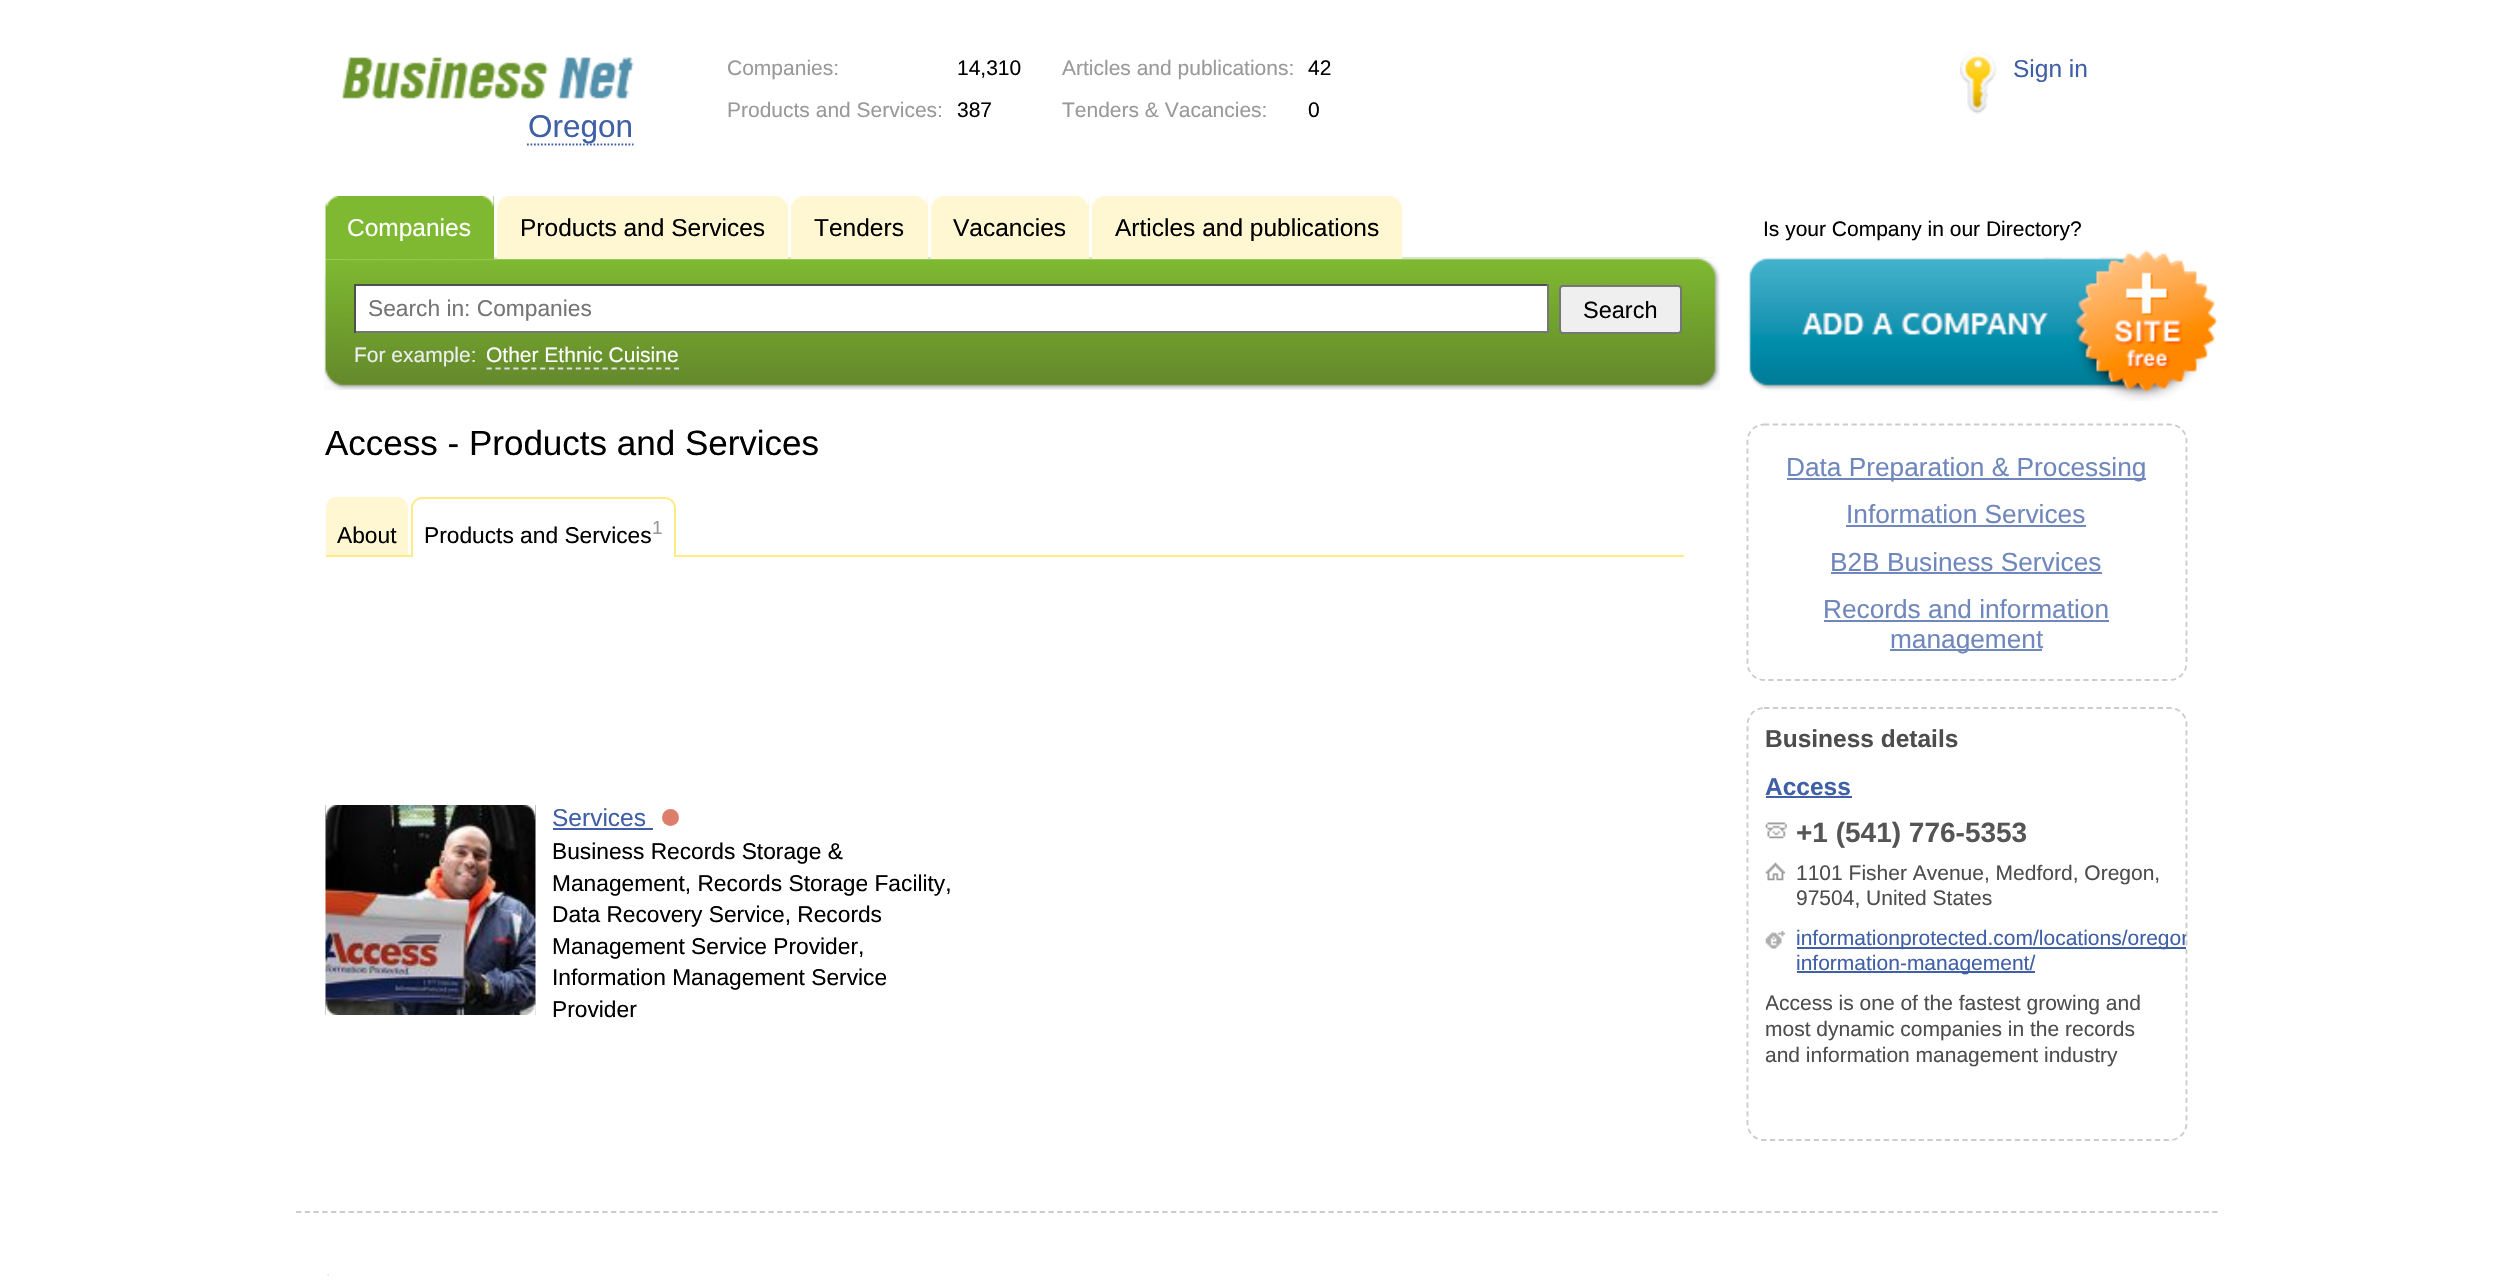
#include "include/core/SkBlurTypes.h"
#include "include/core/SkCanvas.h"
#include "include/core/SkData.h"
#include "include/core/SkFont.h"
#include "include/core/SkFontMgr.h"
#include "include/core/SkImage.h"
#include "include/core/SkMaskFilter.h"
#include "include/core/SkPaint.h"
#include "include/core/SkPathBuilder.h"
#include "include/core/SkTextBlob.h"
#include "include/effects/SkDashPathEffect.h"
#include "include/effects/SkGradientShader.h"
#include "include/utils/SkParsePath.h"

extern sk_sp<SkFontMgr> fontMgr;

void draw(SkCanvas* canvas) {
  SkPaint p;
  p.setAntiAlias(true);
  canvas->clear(SK_ColorWHITE);
  canvas->drawImageRect(SkImages::DeferredFromEncodedData(SkData::MakeFromFileName("images/1.png")), SkRect::MakeLTRB(1960, 52, 1997, 114), SkSamplingOptions());
  canvas->drawImageRect(SkImages::DeferredFromEncodedData(SkData::MakeFromFileName("images/2.png")), SkRect::MakeLTRB(341, 57, 634, 99), SkSamplingOptions());
  p.setStyle(SkPaint::kStroke_Style);
  p.setStrokeWidth(1.8f);
  p.setColor(SkColorSetRGB(63, 95, 166));
  p.setPathEffect(SkDashPathEffect::Make({{1.75f, 1.75f}}, 0));
  canvas->drawPath(SkPathBuilder().moveTo(527, 144.5f).lineTo(633.5f, 144.5f).detach(), p);
  p.setPathEffect(nullptr);
  canvas->drawImageRect(SkImages::DeferredFromEncodedData(SkData::MakeFromFileName("images/9.png")), SkRect::MakeLTRB(325, 257, 1715, 390), SkSamplingOptions());
  canvas->drawImageRect(SkImages::DeferredFromEncodedData(SkData::MakeFromFileName("images/10.png")), SkRect::MakeLTRB(323, 257, 345, 391), SkSamplingOptions());
  p.setStyle(SkPaint::kFill_Style);
  p.setColor(SkColorSetRGB(126, 185, 49));
  canvas->drawRect(SkRect::MakeLTRB(337, 196, 494, 259), p);
  canvas->drawImageRect(SkImages::DeferredFromEncodedData(SkData::MakeFromFileName("images/3.png")), SkRect::MakeLTRB(483, 196, 494, 207), SkSamplingOptions());
  canvas->drawImageRect(SkImages::DeferredFromEncodedData(SkData::MakeFromFileName("images/4.png")), SkRect::MakeLTRB(325, 196, 338, 259), SkSamplingOptions());
  p.setColor(SkColorSetRGB(255, 247, 209));
  canvas->drawRect(SkRect::MakeLTRB(497, 196, 788, 259), p);
  canvas->drawImageRect(SkImages::DeferredFromEncodedData(SkData::MakeFromFileName("images/5.png")), SkRect::MakeLTRB(777, 196, 788, 206), SkSamplingOptions());
  canvas->drawImageRect(SkImages::DeferredFromEncodedData(SkData::MakeFromFileName("images/6.png")), SkRect::MakeLTRB(497, 196, 508, 207), SkSamplingOptions());
  canvas->drawRect(SkRect::MakeLTRB(791, 196, 928, 259), p);
  canvas->drawImageRect(SkImages::DeferredFromEncodedData(SkData::MakeFromFileName("images/5.png")), SkRect::MakeLTRB(917, 196, 928, 206), SkSamplingOptions());
  canvas->drawImageRect(SkImages::DeferredFromEncodedData(SkData::MakeFromFileName("images/7.png")), SkRect::MakeLTRB(791, 196, 802, 207), SkSamplingOptions());
  canvas->drawRect(SkRect::MakeLTRB(931, 196, 1089, 259), p);
  canvas->drawImageRect(SkImages::DeferredFromEncodedData(SkData::MakeFromFileName("images/5.png")), SkRect::MakeLTRB(1078, 196, 1089, 206), SkSamplingOptions());
  canvas->drawImageRect(SkImages::DeferredFromEncodedData(SkData::MakeFromFileName("images/7.png")), SkRect::MakeLTRB(931, 196, 942, 207), SkSamplingOptions());
  canvas->drawRect(SkRect::MakeLTRB(1092, 196, 1402, 259), p);
  canvas->drawImageRect(SkImages::DeferredFromEncodedData(SkData::MakeFromFileName("images/8.png")), SkRect::MakeLTRB(1391, 196, 1402, 206), SkSamplingOptions());
  canvas->drawImageRect(SkImages::DeferredFromEncodedData(SkData::MakeFromFileName("images/7.png")), SkRect::MakeLTRB(1092, 196, 1103, 207), SkSamplingOptions());
  p.setColor(SK_ColorWHITE);
  canvas->drawRect(SkRect::MakeLTRB(356, 286, 1547, 331), p);
  p.setColor(SkColorSetRGB(79, 79, 79));
  canvas->drawRect(SkRect::MakeLTRB(354, 284, 1549, 286), p);
  p.setColor(SkColorSetRGB(118, 118, 118));
  canvas->drawRect(SkRect::MakeLTRB(1547, 284, 1549, 333), p);
  canvas->drawRect(SkRect::MakeLTRB(354, 331, 1549, 333), p);
  p.setColor(SkColorSetRGB(79, 79, 79));
  canvas->drawRect(SkRect::MakeLTRB(354, 284, 356, 333), p);
  p.setColor(SkColorSetRGB(239, 239, 239));
  canvas->drawRoundRect(SkRect::MakeLTRB(1560, 286, 1681, 333), 3, 3, p);
  p.setStyle(SkPaint::kStroke_Style);
  p.setStrokeWidth(2);
  p.setColor(SkColorSetRGB(118, 118, 118));
  canvas->drawRoundRect(SkRect::MakeLTRB(1560, 286, 1681, 333), 3, 3, p);
  canvas->drawImageRect(SkImages::DeferredFromEncodedData(SkData::MakeFromFileName("images/11.png")), SkRect::MakeLTRB(1699, 257, 1721, 391), SkSamplingOptions());
  p.setStrokeWidth(1.8f);
  p.setColor(SkColorSetRGB(221, 221, 221));
  p.setPathEffect(SkDashPathEffect::Make({{5.25f, 3.68f}}, 0));
  canvas->drawPath(SkPathBuilder().moveTo(486.5f, 368.5f).lineTo(679, 368.5f).detach(), p);
  p.setPathEffect(nullptr);
  canvas->drawImageRect(SkImages::DeferredFromEncodedData(SkData::MakeFromFileName("images/12.png")), SkRect::MakeLTRB(1748, 250, 2218, 401), SkSamplingOptions());
  p.setStyle(SkPaint::kFill_Style);
  p.setColor(SkColorSetRGB(255, 234, 132));
  canvas->drawRect(SkRect::MakeLTRB(326, 555, 1684, 557), p);
  p.setColor(SkColorSetRGB(255, 247, 209));
  canvas->drawPath(SkPathBuilder().moveTo(336, 499).lineTo(397, 499).cubicTo(402, 499, 406, 503, 406, 508).lineTo(406, 555).lineTo(327, 555).lineTo(327, 508).cubicTo(327, 503, 331, 499, 336, 499).close().detach(), p);
  canvas->drawPath(SkPathBuilder(SkPathFillType::kEvenOdd).moveTo(336, 497).lineTo(397, 497).cubicTo(403, 497, 408, 502, 408, 508).lineTo(408, 555).lineTo(326, 555).lineTo(326, 508).cubicTo(326, 502, 330, 497, 336, 497).close().moveTo(336, 499).lineTo(397, 499).cubicTo(402, 499, 406, 503, 406, 508).lineTo(406, 555).lineTo(327, 555).lineTo(327, 508).cubicTo(327, 503, 331, 499, 336, 499).close().detach(), p);
  p.setColor(SK_ColorWHITE);
  canvas->drawPath(SkPathBuilder().moveTo(422, 499).lineTo(665, 499).cubicTo(670, 499, 674, 503, 674, 508).lineTo(674, 557).lineTo(413, 557).lineTo(413, 508).cubicTo(413, 503, 417, 499, 422, 499).close().detach(), p);
  p.setColor(SkColorSetRGB(255, 234, 133));
  canvas->drawPath(SkPathBuilder(SkPathFillType::kEvenOdd).moveTo(422, 497).lineTo(665, 497).cubicTo(671, 497, 676, 502, 676, 508).lineTo(676, 556).lineTo(411, 556).lineTo(411, 508).cubicTo(411, 502, 416, 497, 422, 497).close().moveTo(422, 499).lineTo(665, 499).cubicTo(670, 499, 674, 503, 674, 508).lineTo(674, 556).lineTo(413, 556).lineTo(413, 508).cubicTo(413, 503, 417, 499, 422, 499).close().detach(), p);
  canvas->drawImageRect(SkImages::DeferredFromEncodedData(SkData::MakeFromFileName("images/13.png")), SkRect::MakeLTRB(325, 805, 536, 1015), SkSamplingOptions());
  canvas->drawImageRect(SkImages::DeferredFromEncodedData(SkData::MakeFromFileName("images/14.png")), SkRect::MakeLTRB(325, 805, 536, 1015), SkSamplingOptions());
  p.setColor(SkColorSetRGB(63, 95, 166));
  canvas->drawRect(SkRect::MakeLTRB(553, 828, 653, 830), p);
  p.setColor(SkColorSetRGB(221, 126, 107));
  canvas->drawCircle(670.5f, 817.5f, 8.5f, p);
  p.setStyle(SkPaint::kStroke_Style);
  p.setColor(SkColorSetRGB(204, 204, 204));
  p.setPathEffect(SkDashPathEffect::Make({{5.25f, 3.5f}}, 0));
  canvas->drawPath(SkPathBuilder().moveTo(1764, 424.5f).lineTo(2170, 424.5f).cubicTo(2179, 424.5f, 2186.5f, 432, 2186.5f, 441).lineTo(2186.5f, 663).cubicTo(2186.5f, 672.5f, 2179, 680, 2170, 680).lineTo(1764, 680).cubicTo(1755, 680, 1747.5f, 672.5f, 1747.5f, 663).lineTo(1747.5f, 441).cubicTo(1747.5f, 432, 1755, 424.5f, 1764, 424.5f).close().detach(), p);
  p.setPathEffect(nullptr);
  p.setStyle(SkPaint::kFill_Style);
  p.setColor(SkColorSetRGB(111, 135, 188));
  canvas->drawRect(SkRect::MakeLTRB(1787, 478, 2146, 480), p);
  canvas->drawRect(SkRect::MakeLTRB(1846, 525, 2086, 527), p);
  canvas->drawRect(SkRect::MakeLTRB(1831, 572, 2102, 574), p);
  canvas->drawRect(SkRect::MakeLTRB(1824, 620, 2109, 622), p);
  canvas->drawRect(SkRect::MakeLTRB(1890, 649, 2042, 651), p);
  p.setStyle(SkPaint::kStroke_Style);
  p.setColor(SkColorSetRGB(204, 204, 204));
  p.setPathEffect(SkDashPathEffect::Make({{5.25f, 3.5f}}, 0));
  canvas->drawPath(SkPathBuilder().moveTo(1764, 708).lineTo(2170, 708).cubicTo(2179, 708, 2186.5f, 715.5f, 2186.5f, 724.5f).lineTo(2186.5f, 1123.5f).cubicTo(2186.5f, 1132.5f, 2179, 1140, 2170, 1140).lineTo(1764, 1140).cubicTo(1755, 1140, 1747.5f, 1132.5f, 1747.5f, 1123.5f).lineTo(1747.5f, 724.5f).cubicTo(1747.5f, 715.5f, 1755, 708, 1764, 708).close().detach(), p);
  p.setPathEffect(nullptr);
  p.setStyle(SkPaint::kFill_Style);
  p.setColor(SkColorSetRGB(63, 95, 166));
  canvas->drawRect(SkRect::MakeLTRB(1766, 796, 1852, 798), p);
  canvas->drawImageRect(SkImages::DeferredFromEncodedData(SkData::MakeFromFileName("images/15.png")), SkRect::MakeLTRB(1765, 822, 1787, 839), SkSamplingOptions());
  canvas->drawImageRect(SkImages::DeferredFromEncodedData(SkData::MakeFromFileName("images/16.png")), SkRect::MakeLTRB(1765, 862, 1785, 881), SkSamplingOptions());
  canvas->drawImageRect(SkImages::DeferredFromEncodedData(SkData::MakeFromFileName("images/17.png")), SkRect::MakeLTRB(1765, 931, 1785, 949), SkSamplingOptions());
  canvas->drawRect(SkRect::MakeLTRB(1797, 947, 2186, 949), p);
  canvas->drawRect(SkRect::MakeLTRB(1797, 971, 2035, 973), p);
  p.setStyle(SkPaint::kStroke_Style);
  p.setColor(SkColorSetRGB(204, 204, 204));
  p.setPathEffect(SkDashPathEffect::Make({{5.25f, 3.5f}}, 0));
  canvas->drawPath(SkPathBuilder().moveTo(296, 1212).lineTo(2219, 1212).detach(), p);
  p.setPathEffect(nullptr);
  canvas->drawImageRect(SkImages::DeferredFromEncodedData(SkData::MakeFromFileName("images/18.png")), SkRect::MakeLTRB(327, 1274, 329, 1276), SkSamplingOptions());
  SkFont font1(fontMgr->matchFamilyStyle("Liberation Sans", SkFontStyle::Normal()), 21);
  font1.setSubpixel(true);
  p.setStyle(SkPaint::kFill_Style);
  p.setColor(SkColorSetRGB(153, 153, 153));
  canvas->drawString("Companies:", 727, 75, font1, p);
  p.setColor(SK_ColorBLACK);
  canvas->drawString("14,310", 957, 75, font1, p);
  p.setColor(SkColorSetRGB(153, 153, 153));
  canvas->drawString("Products and Services:", 727, 117, font1, p);
  p.setColor(SK_ColorBLACK);
  canvas->drawString("387", 957, 117, font1, p);
  p.setColor(SkColorSetRGB(153, 153, 153));
  canvas->drawString("Articles and publications:", 1062, 75, font1, p);
  p.setColor(SK_ColorBLACK);
  canvas->drawString("42", 1308, 75, font1, p);
  p.setColor(SkColorSetRGB(153, 153, 153));
  canvas->drawString("Tenders & Vacancies:", 1062, 117, font1, p);
  p.setColor(SK_ColorBLACK);
  canvas->drawString("0", 1308, 117, font1, p);
  SkFont font2(fontMgr->matchFamilyStyle("Liberation Sans", SkFontStyle::Normal()), 24.5f);
  font2.setSubpixel(true);
  p.setColor(SkColorSetRGB(63, 95, 166));
  canvas->drawString("Sign in", 2013, 77, font2, p);
  SkFont font3(fontMgr->matchFamilyStyle("Liberation Sans", SkFontStyle::Normal()), 31.5f);
  font3.setSubpixel(true);
  canvas->drawString("Oregon", 528, 137, font3, p);
  p.setColor(SK_ColorWHITE);
  canvas->drawString("Companies", 347, 236, font2, p);
  p.setColor(SK_ColorBLACK);
  canvas->drawString("Products and Services", 520, 236, font2, p);
  canvas->drawString("Tenders", 814, 236, font2, p);
  canvas->drawString("Vacancies", 953, 236, font2, p);
  canvas->drawString("Articles and publications", 1115, 236, font2, p);
  SkFont font4(fontMgr->matchFamilyStyle("Liberation Sans", SkFontStyle::Normal()), 22.75f);
  font4.setSubpixel(true);
  p.setColor(SkColorSetRGB(117, 117, 117));
  canvas->drawString("Search in: Companies", 368, 316, font4, p);
  SkFont font5(fontMgr->matchFamilyStyle("Liberation Sans", SkFontStyle::Normal()), 23.5f);
  font5.setSubpixel(true);
  p.setColor(SK_ColorBLACK);
  canvas->drawString("Search", 1583, 318, font5, p);
  p.setColor(SkColorSetRGB(238, 238, 238));
  canvas->drawString("For example:", 354, 362, font1, p);
  p.setColor(SK_ColorWHITE);
  canvas->drawString("Other Ethnic Cuisine", 486, 362, font1, p);
  p.setColor(SK_ColorBLACK);
  canvas->drawString("Is your Company in our Directory?", 1763, 236, font1, p);
  SkFont font6(fontMgr->matchFamilyStyle("Liberation Sans", SkFontStyle::Normal()), 35);
  font6.setSubpixel(true);
  canvas->drawString("Access - Products and Services", 325, 455, font6, p);
  canvas->drawString("About", 337, 543, font4, p);
  canvas->drawString("Products and Services", 424, 543, font4, p);
  SkFont font7(fontMgr->matchFamilyStyle("Liberation Sans", SkFontStyle::Normal()), 19);
  font7.setSubpixel(true);
  p.setColor(SkColorSetRGB(153, 153, 153));
  canvas->drawString("1", 652, 534, font7, p);
  p.setColor(SkColorSetRGB(63, 95, 166));
  canvas->drawString("Services", 552, 826, font2, p);
  p.setColor(SK_ColorBLACK);
  canvas->drawString("Business Records Storage &", 552, 859, font4, p);
  canvas->drawString("Management, Records Storage Facility,", 552, 891, font4, p);
  canvas->drawString("Data Recovery Service, Records", 552, 922, font4, p);
  canvas->drawString("Management Service Provider,", 552, 954, font4, p);
  canvas->drawString("Information Management Service", 552, 985, font4, p);
  canvas->drawString("Provider", 552, 1017, font4, p);
  SkFont font8(fontMgr->matchFamilyStyle("Liberation Sans", SkFontStyle::Normal()), 26.25f);
  font8.setSubpixel(true);
  p.setColor(SkColorSetRGB(111, 135, 188));
  canvas->drawString("Data Preparation & Processing", 1786, 476, font8, p);
  canvas->drawString("Information Services", 1846, 523, font8, p);
  canvas->drawString("B2B Business Services", 1830, 571, font8, p);
  canvas->drawString("Records and information", 1823, 618, font8, p);
  canvas->drawString("management", 1890, 648, font8, p);
  SkFont font9(fontMgr->matchFamilyStyle("Liberation Sans", SkFontStyle::Bold()), 24.5f);
  font9.setSubpixel(true);
  p.setColor(SkColorSetRGB(77, 77, 77));
  canvas->drawString("Business details", 1765, 747, font9, p);
  p.setColor(SkColorSetRGB(63, 95, 166));
  canvas->drawString("Access", 1765, 795, font9, p);
  SkFont font10(fontMgr->matchFamilyStyle("Liberation Sans", SkFontStyle::Bold()), 28);
  font10.setSubpixel(true);
  p.setColor(SkColorSetRGB(85, 85, 85));
  canvas->drawString("+1 (541) 776-5353", 1796, 842, font10, p);
  p.setColor(SkColorSetRGB(77, 77, 77));
  canvas->drawString("1101 Fisher Avenue, Medford, Oregon,", 1796, 880, font1, p);
  canvas->drawString("97504, United States", 1796, 905, font1, p);
  canvas->save();
  canvas->clipPath(SkPathBuilder().moveTo(1764, 709).lineTo(2170, 709).cubicTo(2179, 709, 2186, 716, 2186, 725).lineTo(2186, 1123).cubicTo(2186, 1132, 2179, 1139, 2170, 1139).lineTo(1764, 1139).cubicTo(1755, 1139, 1748, 1132, 1748, 1123).lineTo(1748, 725).cubicTo(1748, 716, 1755, 709, 1764, 709).close().detach(), true);
  p.setColor(SkColorSetRGB(63, 95, 166));
  canvas->drawString("informationprotected.com/locations/oregon", 1796, 945, font1, p);
  canvas->restore();
  canvas->drawString("information-management/", 1796, 970, font1, p);
  canvas->save();
  canvas->clipRect(SkRect::MakeLTRB(1766, 991, 2168, 1069));
  p.setColor(SkColorSetRGB(77, 77, 77));
  canvas->drawString("Access is one of the fastest growing and", 1765, 1010, font1, p);
  canvas->restore();
  canvas->drawString("most dynamic companies in the records", 1765, 1036, font1, p);
  canvas->drawString("and information management industry", 1765, 1062, font1, p);
}
